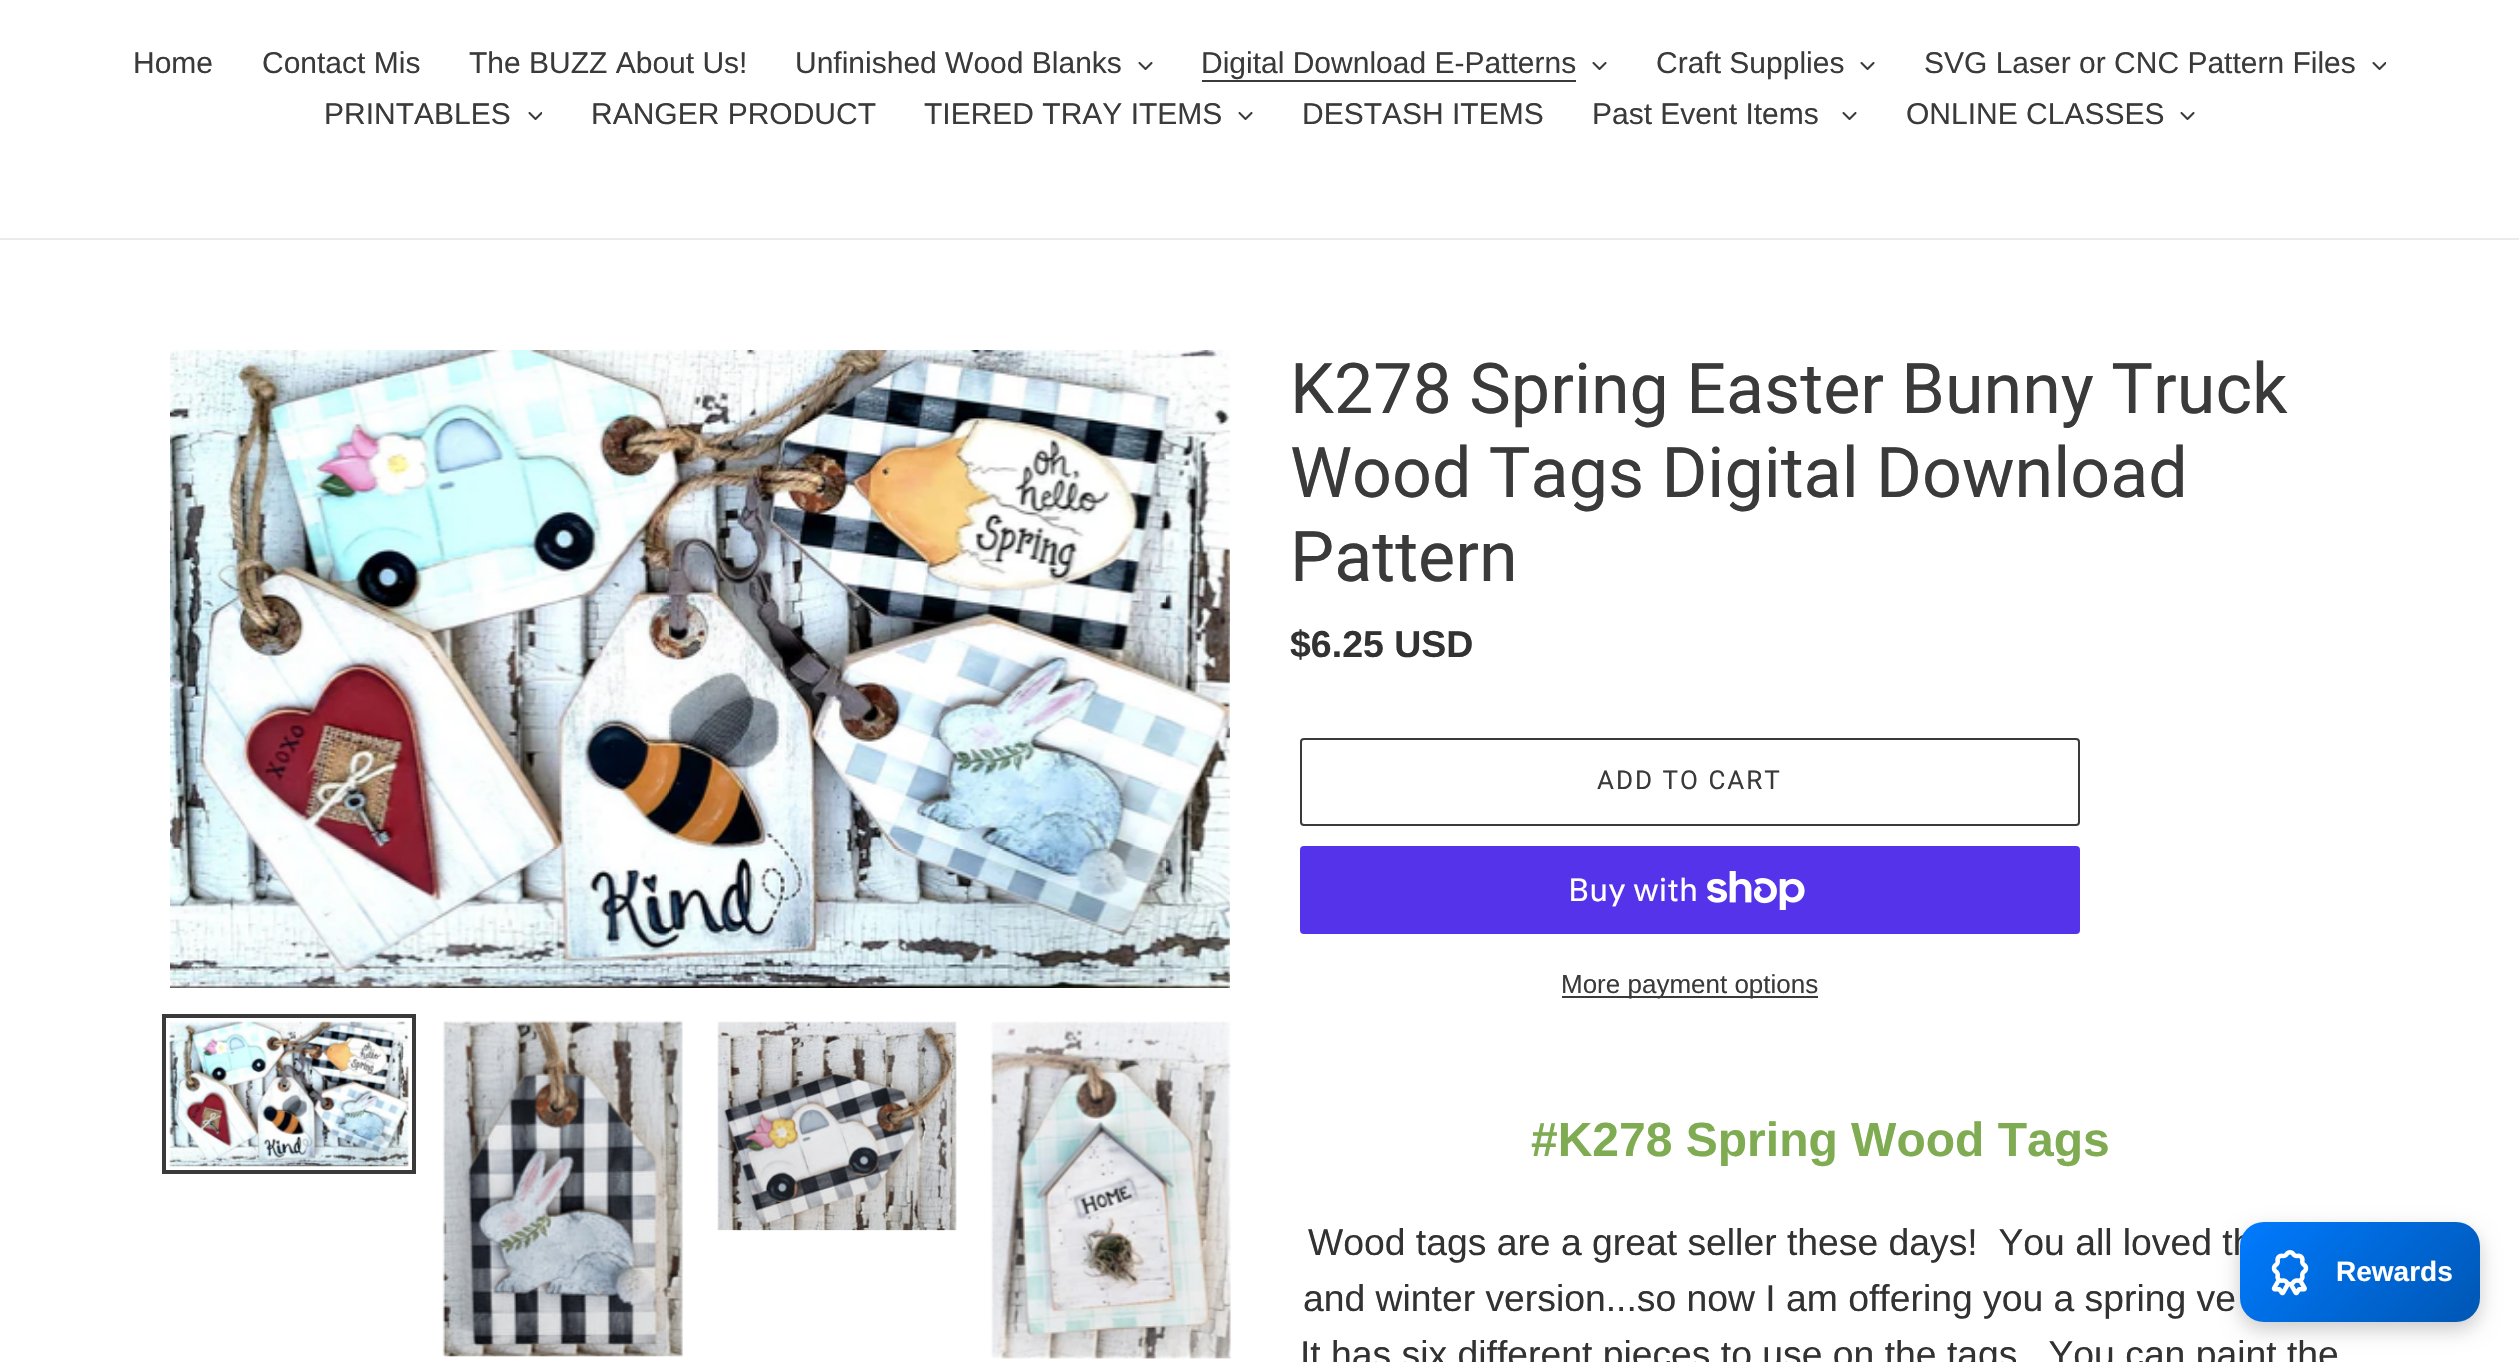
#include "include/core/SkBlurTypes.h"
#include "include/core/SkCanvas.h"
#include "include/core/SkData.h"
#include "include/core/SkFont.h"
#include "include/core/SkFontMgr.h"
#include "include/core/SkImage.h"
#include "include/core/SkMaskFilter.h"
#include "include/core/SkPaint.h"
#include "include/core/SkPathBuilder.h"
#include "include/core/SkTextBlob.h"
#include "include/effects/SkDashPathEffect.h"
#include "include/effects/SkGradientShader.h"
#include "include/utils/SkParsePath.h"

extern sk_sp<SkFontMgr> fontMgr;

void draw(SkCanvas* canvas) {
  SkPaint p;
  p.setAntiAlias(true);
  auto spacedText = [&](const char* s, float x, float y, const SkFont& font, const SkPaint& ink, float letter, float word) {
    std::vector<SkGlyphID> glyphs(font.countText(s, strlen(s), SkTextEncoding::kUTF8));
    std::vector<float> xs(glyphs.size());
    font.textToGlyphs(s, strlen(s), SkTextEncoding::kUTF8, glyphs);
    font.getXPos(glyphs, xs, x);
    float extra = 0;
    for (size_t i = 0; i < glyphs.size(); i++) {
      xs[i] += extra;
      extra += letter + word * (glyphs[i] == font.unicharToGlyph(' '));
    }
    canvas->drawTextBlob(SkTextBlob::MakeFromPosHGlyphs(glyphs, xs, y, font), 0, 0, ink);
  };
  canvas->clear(SK_ColorWHITE);
  p.setColor(SkColorSetRGB(235, 235, 235));
  canvas->drawRect(SkRect::MakeLTRB(0, 238, 2519, 240), p);
  canvas->drawImageRect(SkImages::DeferredFromEncodedData(SkData::MakeFromFileName("images/1.png")), SkRect::MakeLTRB(1138, 62, 1153, 70), SkSamplingOptions());
  p.setColor(SkColorSetRGB(58, 58, 58));
  canvas->drawRect(SkRect::MakeLTRB(1202, 80, 1576, 82), p);
  canvas->drawImageRect(SkImages::DeferredFromEncodedData(SkData::MakeFromFileName("images/1.png")), SkRect::MakeLTRB(1592, 62, 1607, 70), SkSamplingOptions());
  canvas->drawImageRect(SkImages::DeferredFromEncodedData(SkData::MakeFromFileName("images/1.png")), SkRect::MakeLTRB(1860, 62, 1875, 70), SkSamplingOptions());
  canvas->drawImageRect(SkImages::DeferredFromEncodedData(SkData::MakeFromFileName("images/2.png")), SkRect::MakeLTRB(2372, 62, 2386, 70), SkSamplingOptions());
  canvas->drawImageRect(SkImages::DeferredFromEncodedData(SkData::MakeFromFileName("images/2.png")), SkRect::MakeLTRB(528, 112, 542, 120), SkSamplingOptions());
  canvas->drawImageRect(SkImages::DeferredFromEncodedData(SkData::MakeFromFileName("images/1.png")), SkRect::MakeLTRB(1238, 112, 1253, 120), SkSamplingOptions());
  canvas->drawImageRect(SkImages::DeferredFromEncodedData(SkData::MakeFromFileName("images/1.png")), SkRect::MakeLTRB(1842, 112, 1857, 120), SkSamplingOptions());
  canvas->drawImageRect(SkImages::DeferredFromEncodedData(SkData::MakeFromFileName("images/1.png")), SkRect::MakeLTRB(2180, 112, 2195, 120), SkSamplingOptions());
  canvas->drawImageRect(SkImages::DeferredFromEncodedData(SkData::MakeFromFileName("images/3.png")), SkRect::MakeLTRB(170, 350, 1230, 988), SkSamplingOptions());
  p.setStyle(SkPaint::kStroke_Style);
  p.setStrokeWidth(4);
  canvas->drawRect(SkRect::MakeLTRB(164, 1016, 414, 1172), p);
  canvas->drawImageRect(SkImages::DeferredFromEncodedData(SkData::MakeFromFileName("images/4.png")), SkRect::MakeLTRB(169, 1021, 409, 1167), SkSamplingOptions());
  canvas->drawImageRect(SkImages::DeferredFromEncodedData(SkData::MakeFromFileName("images/5.png")), SkRect::MakeLTRB(442, 1020, 683, 1357), SkSamplingOptions());
  canvas->drawImageRect(SkImages::DeferredFromEncodedData(SkData::MakeFromFileName("images/6.png")), SkRect::MakeLTRB(717, 1021, 957, 1231), SkSamplingOptions());
  canvas->drawImageRect(SkImages::DeferredFromEncodedData(SkData::MakeFromFileName("images/7.png")), SkRect::MakeLTRB(990, 1021, 1231, 1359), SkSamplingOptions());
  p.setStrokeWidth(2);
  canvas->drawRoundRect(SkRect::MakeLTRB(1301, 739, 2079, 825), 3, 3, p);
  p.setStyle(SkPaint::kFill_Style);
  p.setColor(SkColorSetRGB(84, 51, 235));
  canvas->drawRoundRect(SkRect::MakeLTRB(1300, 846, 2080, 934), 4, 4, p);
  canvas->drawImageRect(SkImages::DeferredFromEncodedData(SkData::MakeFromFileName("images/8.png")), SkRect::MakeLTRB(1707, 871, 1805, 910), SkSamplingOptions());
  p.setColor(SkColorSetRGB(58, 58, 58));
  canvas->drawRect(SkRect::MakeLTRB(1562, 996, 1818, 998), p);
  p.setColor(SkColorSetARGB(51, 0, 0, 0));
  p.setMaskFilter(SkMaskFilter::MakeBlur(kNormal_SkBlurStyle, 10));
  canvas->drawRoundRect(SkRect::MakeLTRB(2240, 1230, 2480, 1330), 24, 24, p);
  p.setMaskFilter(nullptr);
  SkFont font1(fontMgr->matchFamilyStyle("Liberation Sans", SkFontStyle::Normal()), 30);
  font1.setSubpixel(true);
  p.setColor(SkColorSetRGB(58, 58, 58));
  canvas->drawString("Home", 133, 73, font1, p);
  canvas->drawString("Contact Mis", 262, 73, font1, p);
  canvas->drawString("The BUZZ About Us!", 469, 73, font1, p);
  canvas->drawString("Unfinished Wood Blanks", 795, 73, font1, p);
  canvas->drawString("Digital Download E-Patterns", 1201, 73, font1, p);
  canvas->drawString("Craft Supplies", 1656, 73, font1, p);
  canvas->drawString("SVG Laser or CNC Pattern Files", 1924, 73, font1, p);
  canvas->drawString("PRINTABLES", 324, 124, font1, p);
  canvas->drawString("RANGER PRODUCT", 591, 124, font1, p);
  canvas->drawString("TIERED TRAY ITEMS", 924, 124, font1, p);
  canvas->drawString("DESTASH ITEMS", 1302, 124, font1, p);
  canvas->drawString("Past Event Items", 1592, 124, font1, p);
  canvas->drawString("ONLINE CLASSES", 1906, 124, font1, p);
  SkFont font2(fontMgr->matchFamilyStyle("Roboto", SkFontStyle::Normal()), 70);
  font2.setSubpixel(true);
  canvas->drawString("K278 Spring Easter Bunny Truck", 1290, 413, font2, p);
  canvas->drawString("Wood Tags Digital Download", 1290, 497, font2, p);
  canvas->drawString("Pattern", 1290, 581, font2, p);
  SkFont font3(fontMgr->matchFamilyStyle("Liberation Sans", SkFontStyle::Bold()), 37.5f);
  font3.setSubpixel(true);
  p.setColor(SkColorSetRGB(51, 50, 50));
  canvas->drawString("$6.25 USD", 1290, 657, font3, p);
  SkFont font4(fontMgr->matchFamilyStyle("Roboto", SkFontStyle::Normal()), 26);
  font4.setSubpixel(true);
  p.setColor(SkColorSetRGB(58, 58, 58));
  spacedText("ADD TO CART", 1597, 789, font4, p, 2, 0);
  SkFont font5(fontMgr->matchFamilyStyle("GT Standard", SkFontStyle::Normal()), 32);
  font5.setSubpixel(true);
  p.setColor(SK_ColorWHITE);
  canvas->drawString("Buy with", 1568, 901, font5, p);
  SkFont font6(fontMgr->matchFamilyStyle("Liberation Sans", SkFontStyle::Normal()), 26);
  font6.setSubpixel(true);
  p.setColor(SkColorSetRGB(58, 58, 58));
  canvas->drawString("More payment options", 1561, 993, font6, p);
  SkFont font7(fontMgr->matchFamilyStyle("Liberation Sans", SkFontStyle::Bold()), 48);
  font7.setSubpixel(true);
  p.setColor(SkColorSetRGB(127, 172, 82));
  canvas->drawString("#K278 Spring Wood Tags", 1531, 1156, font7, p);
  SkFont font8(fontMgr->matchFamilyStyle("Liberation Sans", SkFontStyle::Normal()), 37.3f);
  font8.setSubpixel(true);
  p.setColor(SkColorSetRGB(51, 50, 50));
  canvas->drawString("Wood tags are a great seller these days!  You all loved th", 1308, 1255, font8, p);
  canvas->drawString("and winter version...so now I am offering you a spring ve", 1303, 1311, font8, p);
  canvas->drawString("It has six different pieces to use on the tags.  You can paint the", 1300, 1367, font8, p);
  {
    const SkColor colors[] = {SkColorSetRGB(0, 123, 255), SkColorSetRGB(0, 86, 179)};
    const float stops[] = {0, 1};
    const SkPoint ends[] = {{2275, 1187}, {2445, 1357}};
    p.setShader(SkGradientShader::MakeLinear(ends, colors, stops, 2, SkTileMode::kClamp));
    p.setAlpha(255);
  }
  canvas->drawRoundRect(SkRect::MakeLTRB(2240, 1222, 2480, 1322), 24, 24, p);
  canvas->drawImageRect(SkImages::DeferredFromEncodedData(SkData::MakeFromFileName("images/9.png")), SkRect::MakeLTRB(2271, 1250, 2309, 1296), SkSamplingOptions());
  SkFont font9(fontMgr->matchFamilyStyle("Liberation Sans", SkFontStyle::Bold()), 28);
  font9.setSubpixel(true);
  p.setShader(nullptr);
  p.setColor(SK_ColorWHITE);
  canvas->drawString("Rewards", 2336, 1281, font9, p);
}
